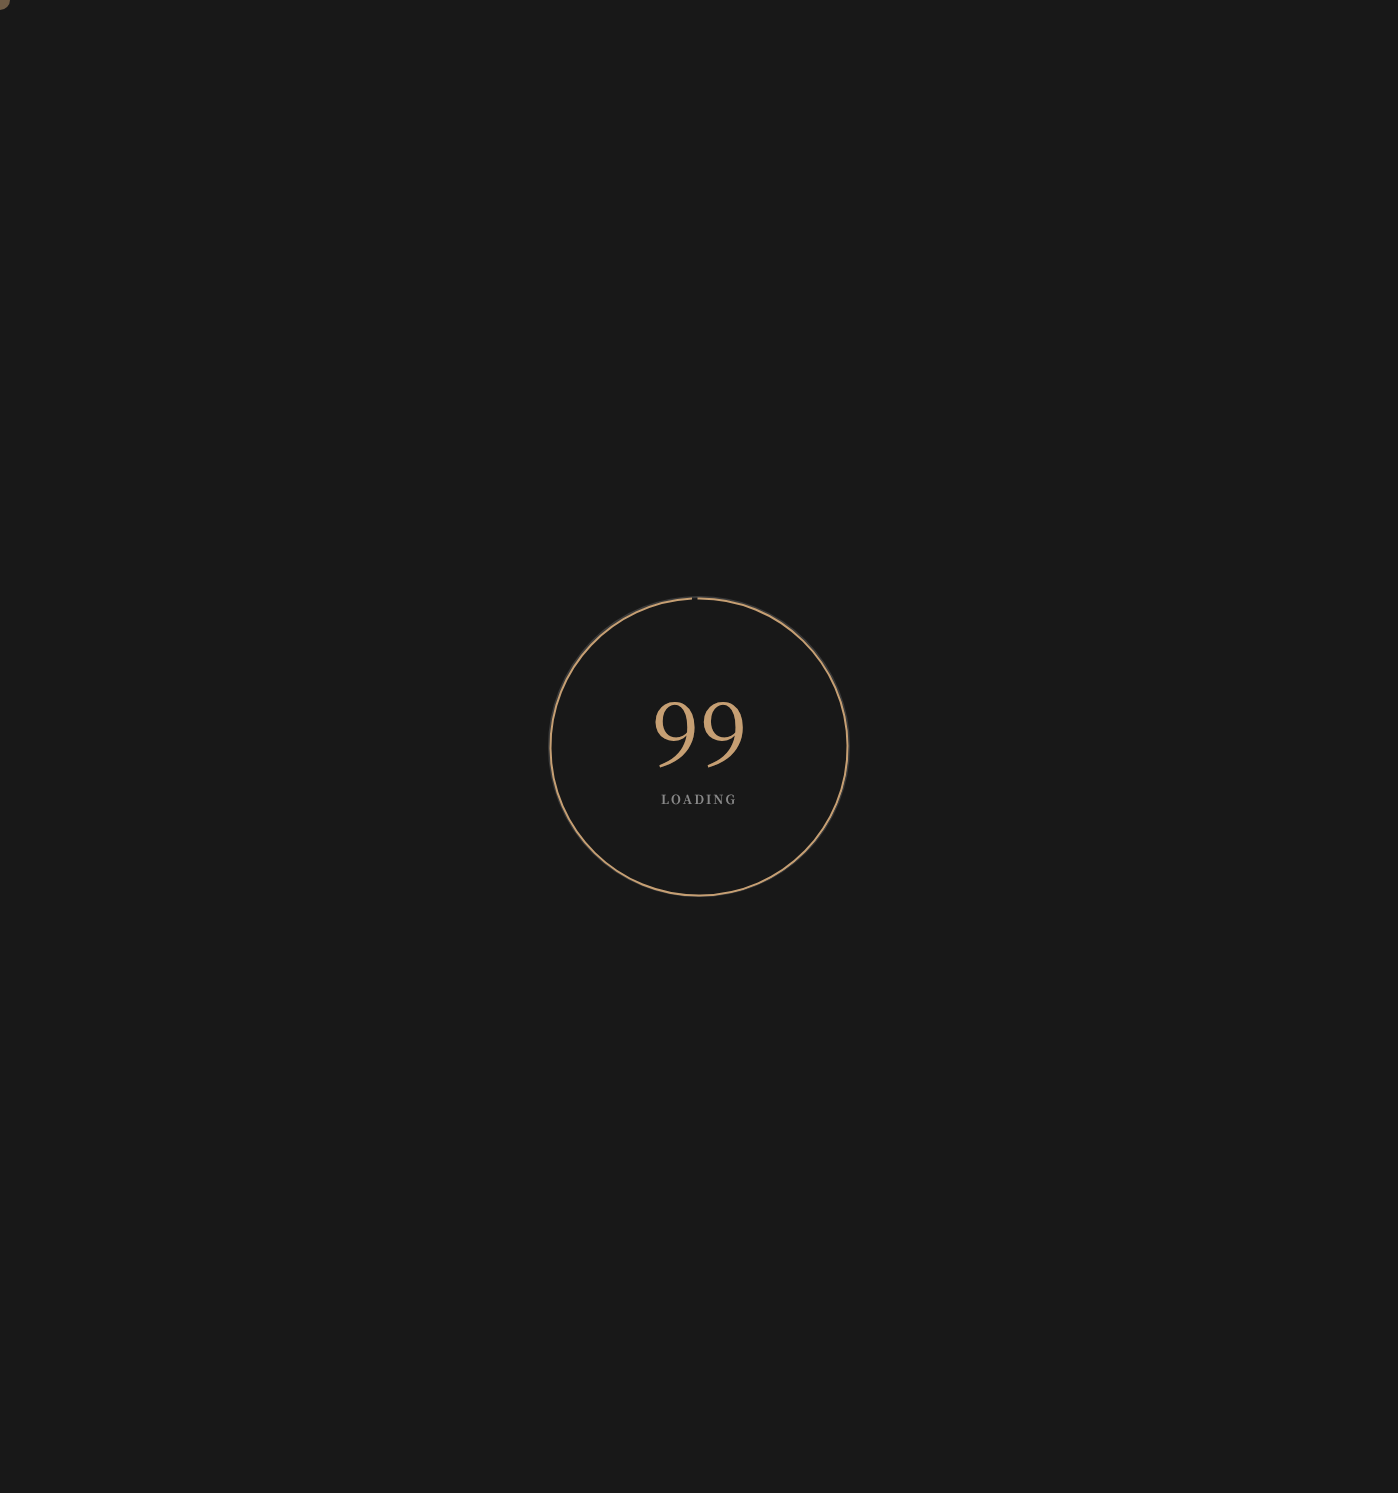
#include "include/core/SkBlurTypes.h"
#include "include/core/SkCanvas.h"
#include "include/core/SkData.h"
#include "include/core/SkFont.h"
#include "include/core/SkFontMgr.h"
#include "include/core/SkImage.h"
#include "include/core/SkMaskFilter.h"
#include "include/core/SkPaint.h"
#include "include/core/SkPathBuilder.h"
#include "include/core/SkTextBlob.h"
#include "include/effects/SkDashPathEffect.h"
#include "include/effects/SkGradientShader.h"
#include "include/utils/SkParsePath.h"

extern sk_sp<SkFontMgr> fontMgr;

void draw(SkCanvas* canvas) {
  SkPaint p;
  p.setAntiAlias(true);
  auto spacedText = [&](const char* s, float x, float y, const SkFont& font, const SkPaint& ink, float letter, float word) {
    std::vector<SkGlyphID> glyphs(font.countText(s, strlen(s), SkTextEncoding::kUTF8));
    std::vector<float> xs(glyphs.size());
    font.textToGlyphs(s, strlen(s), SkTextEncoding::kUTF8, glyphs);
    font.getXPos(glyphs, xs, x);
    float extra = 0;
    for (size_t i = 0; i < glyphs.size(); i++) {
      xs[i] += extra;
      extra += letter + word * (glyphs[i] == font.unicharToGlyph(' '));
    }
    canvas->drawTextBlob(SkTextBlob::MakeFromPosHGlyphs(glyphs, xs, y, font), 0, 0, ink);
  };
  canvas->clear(SkColorSetRGB(24, 24, 24));
  p.setColor(SkColorSetRGB(111, 92, 70));
  canvas->drawCircle(0, 0, 10, p);
  p.setStyle(SkPaint::kStroke_Style);
  p.setStrokeWidth(2);
  p.setColor(SkColorSetRGB(58, 58, 58));
  canvas->drawRoundRect(SkRect::MakeLTRB(549, 597, 849, 896), 149.5f, 149.5f, p);
  SkFont font1(fontMgr->matchFamilyStyle("Noto Serif JP", SkFontStyle::Normal()), 86);
  font1.setSubpixel(true);
  p.setStyle(SkPaint::kFill_Style);
  p.setColor(SkColorSetRGB(198, 159, 115));
  canvas->drawString("99", 651, 766, font1, p);
  SkFont font2(fontMgr->matchFamilyStyle("Noto Serif JP", SkFontStyle::Bold()), 12.5f);
  font2.setSubpixel(true);
  p.setColor(SkColorSetRGB(136, 136, 136));
  spacedText("LOADING", 661, 804, font2, p, 2, 0);
  canvas->save();
  canvas->clipPath(SkPathBuilder().moveTo(698.5f, 596).cubicTo(781.5f, 596, 849, 663.5f, 849, 746.5f).cubicTo(849, 829.5f, 781.5f, 897, 698.5f, 897).cubicTo(615.5f, 897, 548, 829.5f, 548, 746.5f).cubicTo(548, 663.5f, 615.5f, 596, 698.5f, 596).close().detach(), true);
  p.setStyle(SkPaint::kStroke_Style);
  p.setColor(SkColorSetRGB(198, 159, 115));
  canvas->drawPath(SkPathBuilder().moveTo(692, 598.5f).cubicTo(612.5f, 602.5f, 549.5f, 668.5f, 550.5f, 748.5f).cubicTo(551, 830.5f, 618.5f, 896.5f, 700.5f, 895.5f).cubicTo(782.5f, 895, 848.5f, 827.5f, 847.5f, 745.5f).cubicTo(847, 663.5f, 779.5f, 597.5f, 697.5f, 598.5f).detach(), p);
  canvas->restore();
}
